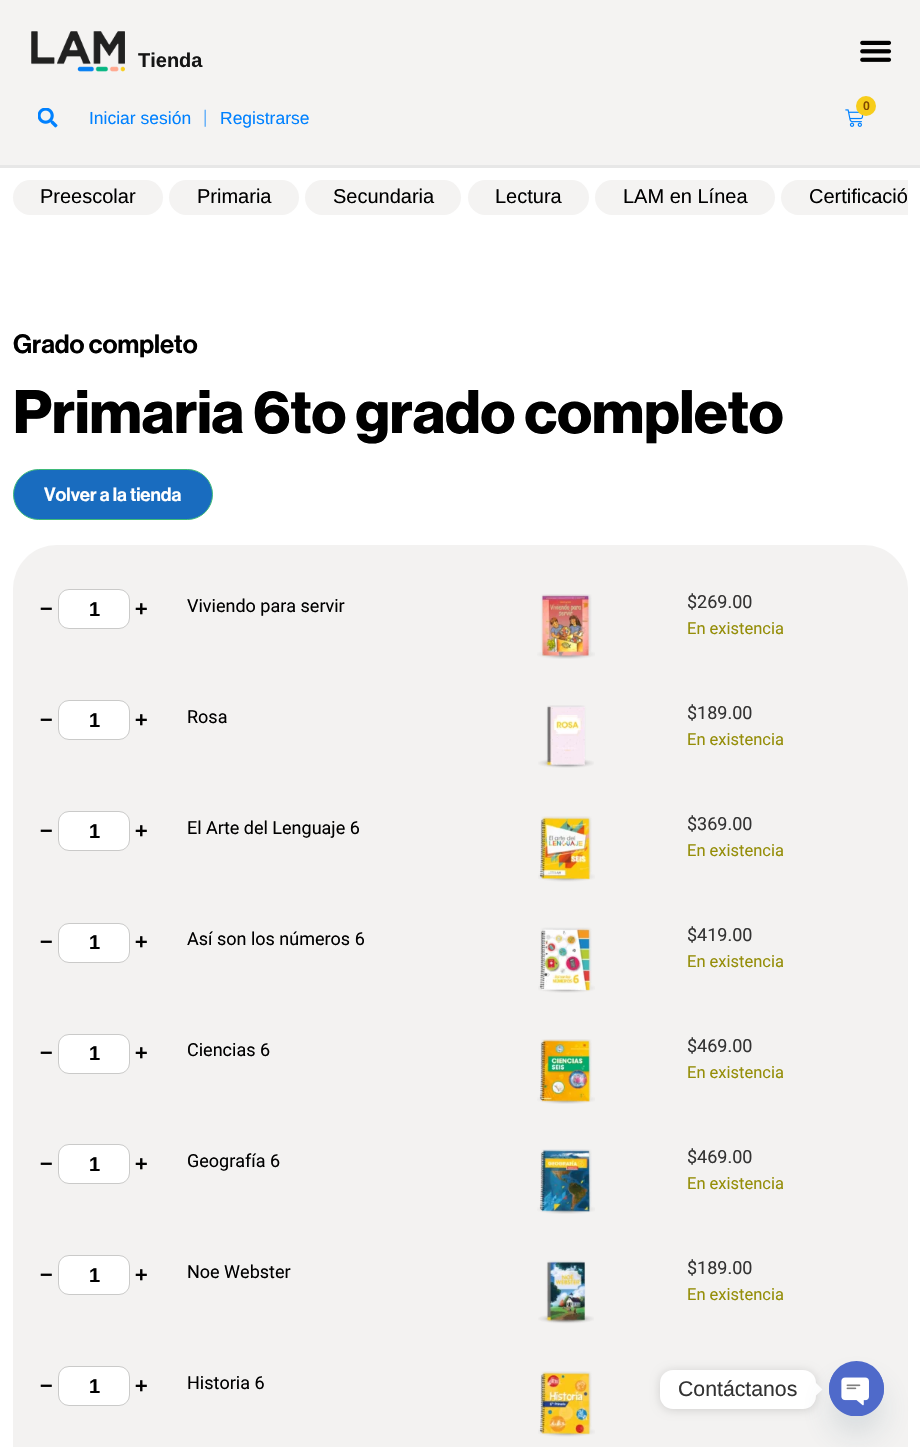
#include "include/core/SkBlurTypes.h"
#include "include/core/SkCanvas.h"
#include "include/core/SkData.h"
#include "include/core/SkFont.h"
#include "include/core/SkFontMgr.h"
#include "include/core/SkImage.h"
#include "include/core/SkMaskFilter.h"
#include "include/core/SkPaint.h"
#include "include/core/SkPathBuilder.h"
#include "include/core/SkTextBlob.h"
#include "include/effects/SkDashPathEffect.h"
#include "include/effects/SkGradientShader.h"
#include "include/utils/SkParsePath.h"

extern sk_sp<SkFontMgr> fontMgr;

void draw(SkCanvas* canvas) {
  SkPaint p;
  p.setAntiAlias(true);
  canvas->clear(SK_ColorWHITE);
  p.setColor(SkColorSetRGB(244, 243, 242));
  canvas->drawRect(SkRect::MakeLTRB(0, 0, 920, 165), p);
  p.setColor(SkColorSetRGB(231, 231, 231));
  canvas->drawRect(SkRect::MakeLTRB(0, 165, 920, 168), p);
  canvas->drawImageRect(SkImages::DeferredFromEncodedData(SkData::MakeFromFileName("images/1.png")), SkRect::MakeLTRB(31, 31, 125, 72), SkSamplingOptions());
  canvas->drawImageRect(SkImages::DeferredFromEncodedData(SkData::MakeFromFileName("images/2.png")), SkRect::MakeLTRB(860, 40, 892, 62), SkSamplingOptions());
  canvas->drawImageRect(SkImages::DeferredFromEncodedData(SkData::MakeFromFileName("images/3.png")), SkRect::MakeLTRB(845, 109, 864, 127), SkSamplingOptions());
  p.setColor(SkColorSetRGB(247, 205, 27));
  canvas->drawCircle(866, 106, 10, p);
  canvas->drawImageRect(SkImages::DeferredFromEncodedData(SkData::MakeFromFileName("images/4.png")), SkRect::MakeLTRB(38, 108, 58, 128), SkSamplingOptions());
  p.setColor(SkColorSetRGB(244, 243, 242));
  canvas->drawRoundRect(SkRect::MakeLTRB(13, 180, 163, 215), 17.5f, 17.5f, p);
  canvas->drawRoundRect(SkRect::MakeLTRB(169, 180, 299, 215), 17.5f, 17.5f, p);
  canvas->drawRoundRect(SkRect::MakeLTRB(305, 180, 461, 215), 17.5f, 17.5f, p);
  canvas->drawRoundRect(SkRect::MakeLTRB(468, 180, 589, 215), 17.5f, 17.5f, p);
  canvas->drawRoundRect(SkRect::MakeLTRB(595, 180, 775, 215), 17.5f, 17.5f, p);
  canvas->drawPath(SkPathBuilder().moveTo(798.5f, 180).lineTo(908, 180).lineTo(908, 215).lineTo(798.5f, 215).cubicTo(789, 215, 781, 207, 781, 197.5f).cubicTo(781, 188, 789, 180, 798.5f, 180).close().detach(), p);
  p.setColor(SkColorSetRGB(25, 108, 191));
  canvas->drawRoundRect(SkRect::MakeLTRB(13.5f, 469.5f, 212.5f, 519.5f), 25, 25, p);
  p.setStyle(SkPaint::kStroke_Style);
  p.setStrokeWidth(1);
  p.setColor(SkColorSetRGB(62, 186, 121));
  canvas->drawRoundRect(SkRect::MakeLTRB(13.5f, 469.5f, 212.5f, 519.5f), 25, 25, p);
  p.setStyle(SkPaint::kFill_Style);
  p.setColor(SkColorSetRGB(243, 242, 241));
  canvas->drawRoundRect(SkRect::MakeLTRB(13, 545, 908, 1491), 44, 44, p);
  p.setColor(SK_ColorWHITE);
  canvas->drawRoundRect(SkRect::MakeLTRB(58.5f, 589.5f, 129.5f, 628.5f), 10.5f, 10.5f, p);
  p.setStyle(SkPaint::kStroke_Style);
  p.setColor(SkColorSetRGB(202, 202, 201));
  canvas->drawRoundRect(SkRect::MakeLTRB(58.5f, 589.5f, 129.5f, 628.5f), 10.5f, 10.5f, p);
  canvas->drawImageRect(SkImages::DeferredFromEncodedData(SkData::MakeFromFileName("images/5.png")), SkRect::MakeLTRB(537, 594, 595, 659), SkSamplingOptions());
  p.setStyle(SkPaint::kFill_Style);
  p.setColor(SK_ColorWHITE);
  canvas->drawRoundRect(SkRect::MakeLTRB(58.5f, 700.5f, 129.5f, 739.5f), 10.5f, 10.5f, p);
  p.setStyle(SkPaint::kStroke_Style);
  p.setColor(SkColorSetRGB(202, 202, 201));
  canvas->drawRoundRect(SkRect::MakeLTRB(58.5f, 700.5f, 129.5f, 739.5f), 10.5f, 10.5f, p);
  canvas->drawImageRect(SkImages::DeferredFromEncodedData(SkData::MakeFromFileName("images/6.png")), SkRect::MakeLTRB(538, 705, 594, 768), SkSamplingOptions());
  p.setStyle(SkPaint::kFill_Style);
  p.setColor(SK_ColorWHITE);
  canvas->drawRoundRect(SkRect::MakeLTRB(58.5f, 811.5f, 129.5f, 850.5f), 10.5f, 10.5f, p);
  p.setStyle(SkPaint::kStroke_Style);
  p.setColor(SkColorSetRGB(202, 202, 201));
  canvas->drawRoundRect(SkRect::MakeLTRB(58.5f, 811.5f, 129.5f, 850.5f), 10.5f, 10.5f, p);
  canvas->drawImageRect(SkImages::DeferredFromEncodedData(SkData::MakeFromFileName("images/7.png")), SkRect::MakeLTRB(538, 816, 595, 882), SkSamplingOptions());
  p.setStyle(SkPaint::kFill_Style);
  p.setColor(SK_ColorWHITE);
  canvas->drawRoundRect(SkRect::MakeLTRB(58.5f, 923.5f, 129.5f, 962.5f), 10.5f, 10.5f, p);
  p.setStyle(SkPaint::kStroke_Style);
  p.setColor(SkColorSetRGB(202, 202, 201));
  canvas->drawRoundRect(SkRect::MakeLTRB(58.5f, 923.5f, 129.5f, 962.5f), 10.5f, 10.5f, p);
  canvas->drawImageRect(SkImages::DeferredFromEncodedData(SkData::MakeFromFileName("images/8.png")), SkRect::MakeLTRB(538, 927, 595, 993), SkSamplingOptions());
  p.setStyle(SkPaint::kFill_Style);
  p.setColor(SK_ColorWHITE);
  canvas->drawRoundRect(SkRect::MakeLTRB(58.5f, 1034.5f, 129.5f, 1073.5f), 10.5f, 10.5f, p);
  p.setStyle(SkPaint::kStroke_Style);
  p.setColor(SkColorSetRGB(202, 202, 201));
  canvas->drawRoundRect(SkRect::MakeLTRB(58.5f, 1034.5f, 129.5f, 1073.5f), 10.5f, 10.5f, p);
  canvas->drawImageRect(SkImages::DeferredFromEncodedData(SkData::MakeFromFileName("images/9.png")), SkRect::MakeLTRB(537, 1039, 595, 1104), SkSamplingOptions());
  p.setStyle(SkPaint::kFill_Style);
  p.setColor(SK_ColorWHITE);
  canvas->drawRoundRect(SkRect::MakeLTRB(58.5f, 1144.5f, 129.5f, 1183.5f), 10.5f, 10.5f, p);
  p.setStyle(SkPaint::kStroke_Style);
  p.setColor(SkColorSetRGB(202, 202, 201));
  canvas->drawRoundRect(SkRect::MakeLTRB(58.5f, 1144.5f, 129.5f, 1183.5f), 10.5f, 10.5f, p);
  canvas->drawImageRect(SkImages::DeferredFromEncodedData(SkData::MakeFromFileName("images/10.png")), SkRect::MakeLTRB(537, 1149, 595, 1214), SkSamplingOptions());
  p.setStyle(SkPaint::kFill_Style);
  p.setColor(SK_ColorWHITE);
  canvas->drawRoundRect(SkRect::MakeLTRB(58.5f, 1255.5f, 129.5f, 1294.5f), 10.5f, 10.5f, p);
  p.setStyle(SkPaint::kStroke_Style);
  p.setColor(SkColorSetRGB(202, 202, 201));
  canvas->drawRoundRect(SkRect::MakeLTRB(58.5f, 1255.5f, 129.5f, 1294.5f), 10.5f, 10.5f, p);
  canvas->drawImageRect(SkImages::DeferredFromEncodedData(SkData::MakeFromFileName("images/11.png")), SkRect::MakeLTRB(538, 1260, 594, 1324), SkSamplingOptions());
  p.setStyle(SkPaint::kFill_Style);
  p.setColor(SK_ColorWHITE);
  canvas->drawRoundRect(SkRect::MakeLTRB(58.5f, 1366.5f, 129.5f, 1405.5f), 10.5f, 10.5f, p);
  p.setStyle(SkPaint::kStroke_Style);
  p.setColor(SkColorSetRGB(202, 202, 201));
  canvas->drawRoundRect(SkRect::MakeLTRB(58.5f, 1366.5f, 129.5f, 1405.5f), 10.5f, 10.5f, p);
  canvas->drawImageRect(SkImages::DeferredFromEncodedData(SkData::MakeFromFileName("images/12.png")), SkRect::MakeLTRB(538, 1371, 595, 1437), SkSamplingOptions());
  p.setStyle(SkPaint::kFill_Style);
  p.setColor(SkColorSetARGB(38, 0, 0, 0));
  p.setMaskFilter(SkMaskFilter::MakeBlur(kNormal_SkBlurStyle, 5));
  canvas->drawRoundRect(SkRect::MakeLTRB(660, 1371, 816, 1410), 13, 13, p);
  p.setMaskFilter(nullptr);
  p.setColor(SK_ColorWHITE);
  canvas->drawRoundRect(SkRect::MakeLTRB(660, 1370, 816, 1409), 13, 13, p);
  canvas->drawPath(SkPathBuilder().moveTo(816, 1395.5f).lineTo(816, 1383).lineTo(822.5f, 1389.5f).close().detach(), p);
  p.setColor(SkColorSetARGB(41, 73, 104, 126));
  p.setMaskFilter(SkMaskFilter::MakeBlur(kNormal_SkBlurStyle, 15));
  canvas->drawRoundRect(SkRect::MakeLTRB(829, 1381, 884, 1436), 27.5f, 27.5f, p);
  p.setMaskFilter(nullptr);
  p.setColor(SkColorSetRGB(79, 106, 202));
  canvas->drawCircle(856.5f, 1388.5f, 27.5f, p);
  canvas->drawImageRect(SkImages::DeferredFromEncodedData(SkData::MakeFromFileName("images/13.png")), SkRect::MakeLTRB(829, 1369, 884, 1416), SkSamplingOptions());
  SkFont font1(fontMgr->matchFamilyStyle("Liberation Sans", SkFontStyle::Bold()), 20);
  font1.setSubpixel(true);
  p.setColor(SkColorSetRGB(21, 21, 21));
  canvas->drawString("Tienda", 138, 67, font1, p);
  SkFont font2(fontMgr->matchFamilyStyle("Roboto", SkFontStyle(600, SkFontStyle::kNormal_Width, SkFontStyle::kUpright_Slant)), 12);
  font2.setSubpixel(true);
  p.setColor(SkColorSetRGB(128, 72, 0));
  canvas->drawString("0", 863, 110, font2, p);
  SkFont font3(fontMgr->matchFamilyStyle("Liberation Sans", SkFontStyle::Normal()), 17.5f);
  font3.setSubpixel(true);
  p.setColor(SkColorSetRGB(0, 129, 255));
  canvas->drawString("Iniciar sesión", 89, 124, font3, p);
  SkFont font4(fontMgr->matchFamilyStyle("Roboto", SkFontStyle(200, SkFontStyle::kNormal_Width, SkFontStyle::kUpright_Slant)), 20);
  font4.setSubpixel(true);
  canvas->drawString("|", 203, 124, font4, p);
  canvas->drawString("Registrarse", 220, 124, font3, p);
  SkFont font5(fontMgr->matchFamilyStyle("Liberation Sans", SkFontStyle::Normal()), 20);
  font5.setSubpixel(true);
  p.setColor(SK_ColorBLACK);
  canvas->drawString("Preescolar", 40, 203, font5, p);
  canvas->drawString("Primaria", 197, 203, font5, p);
  canvas->drawString("Secundaria", 333, 203, font5, p);
  canvas->drawString("Lectura", 495, 203, font5, p);
  canvas->drawString("LAM en Línea", 623, 203, font5, p);
  canvas->drawString("Certificació", 809, 203, font5, p);
  SkFont font6(fontMgr->matchFamilyStyle("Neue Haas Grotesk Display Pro", SkFontStyle(600, SkFontStyle::kNormal_Width, SkFontStyle::kUpright_Slant)), 26);
  font6.setSubpixel(true);
  canvas->drawString("Grado completo", 13, 353, font6, p);
  SkFont font7(fontMgr->matchFamilyStyle("Neue Haas Grotesk Display Pro", SkFontStyle::Bold()), 60);
  font7.setSubpixel(true);
  canvas->drawString("Primaria 6to grado completo", 13, 433, font7, p);
  SkFont font8(fontMgr->matchFamilyStyle("Neue Haas Grotesk Display Pro", SkFontStyle(600, SkFontStyle::kNormal_Width, SkFontStyle::kUpright_Slant)), 18.75f);
  font8.setSubpixel(true);
  p.setColor(SK_ColorWHITE);
  canvas->drawString("Volver a la tienda", 44, 501, font8, p);
  SkFont font9(fontMgr->matchFamilyStyle("Neue Haas Grotesk Display Pro", SkFontStyle(600, SkFontStyle::kNormal_Width, SkFontStyle::kUpright_Slant)), 22);
  font9.setSubpixel(true);
  p.setColor(SK_ColorBLACK);
  canvas->drawString("−", 40, 616, font9, p);
  canvas->drawString("1", 89, 616, font1, p);
  canvas->drawString("+", 135, 616, font9, p);
  SkFont font10(fontMgr->matchFamilyStyle("Roboto", SkFontStyle::Normal()), 18);
  font10.setSubpixel(true);
  canvas->drawString("Viviendo para servir", 187, 612, font10, p);
  p.setColor(SkColorSetRGB(51, 51, 51));
  canvas->drawString("$269.00", 687, 608, font10, p);
  SkFont font11(fontMgr->matchFamilyStyle("Roboto", SkFontStyle::Normal()), 16.5f);
  font11.setSubpixel(true);
  p.setColor(SkColorSetRGB(149, 142, 9));
  canvas->drawString("En existencia", 687, 634, font11, p);
  p.setColor(SK_ColorBLACK);
  canvas->drawString("−", 40, 727, font9, p);
  canvas->drawString("1", 89, 727, font1, p);
  canvas->drawString("+", 135, 727, font9, p);
  canvas->drawString("Rosa", 187, 723, font10, p);
  p.setColor(SkColorSetRGB(51, 51, 51));
  canvas->drawString("$189.00", 687, 719, font10, p);
  p.setColor(SkColorSetRGB(149, 142, 9));
  canvas->drawString("En existencia", 687, 745, font11, p);
  p.setColor(SK_ColorBLACK);
  canvas->drawString("−", 40, 838, font9, p);
  canvas->drawString("1", 89, 838, font1, p);
  canvas->drawString("+", 135, 838, font9, p);
  canvas->drawString("El Arte del Lenguaje 6", 187, 834, font10, p);
  p.setColor(SkColorSetRGB(51, 51, 51));
  canvas->drawString("$369.00", 687, 830, font10, p);
  p.setColor(SkColorSetRGB(149, 142, 9));
  canvas->drawString("En existencia", 687, 856, font11, p);
  p.setColor(SK_ColorBLACK);
  canvas->drawString("−", 40, 949, font9, p);
  canvas->drawString("1", 89, 949, font1, p);
  canvas->drawString("+", 135, 949, font9, p);
  canvas->drawString("Así son los números 6", 187, 945, font10, p);
  p.setColor(SkColorSetRGB(51, 51, 51));
  canvas->drawString("$419.00", 687, 941, font10, p);
  p.setColor(SkColorSetRGB(149, 142, 9));
  canvas->drawString("En existencia", 687, 967, font11, p);
  p.setColor(SK_ColorBLACK);
  canvas->drawString("−", 40, 1060, font9, p);
  canvas->drawString("1", 89, 1060, font1, p);
  canvas->drawString("+", 135, 1060, font9, p);
  canvas->drawString("Ciencias 6", 187, 1056, font10, p);
  p.setColor(SkColorSetRGB(51, 51, 51));
  canvas->drawString("$469.00", 687, 1052, font10, p);
  p.setColor(SkColorSetRGB(149, 142, 9));
  canvas->drawString("En existencia", 687, 1078, font11, p);
  p.setColor(SK_ColorBLACK);
  canvas->drawString("−", 40, 1171, font9, p);
  canvas->drawString("1", 89, 1171, font1, p);
  canvas->drawString("+", 135, 1171, font9, p);
  canvas->drawString("Geografía 6", 187, 1167, font10, p);
  p.setColor(SkColorSetRGB(51, 51, 51));
  canvas->drawString("$469.00", 687, 1163, font10, p);
  p.setColor(SkColorSetRGB(149, 142, 9));
  canvas->drawString("En existencia", 687, 1189, font11, p);
  p.setColor(SK_ColorBLACK);
  canvas->drawString("−", 40, 1282, font9, p);
  canvas->drawString("1", 89, 1282, font1, p);
  canvas->drawString("+", 135, 1282, font9, p);
  canvas->drawString("Noe Webster", 187, 1278, font10, p);
  p.setColor(SkColorSetRGB(51, 51, 51));
  canvas->drawString("$189.00", 687, 1274, font10, p);
  p.setColor(SkColorSetRGB(149, 142, 9));
  canvas->drawString("En existencia", 687, 1300, font11, p);
  p.setColor(SK_ColorBLACK);
  canvas->drawString("−", 40, 1393, font9, p);
  canvas->drawString("1", 89, 1393, font1, p);
  canvas->drawString("+", 135, 1393, font9, p);
  canvas->drawString("Historia 6", 187, 1389, font10, p);
  SkFont font12(fontMgr->matchFamilyStyle("Liberation Sans", SkFontStyle::Normal()), 21.25f);
  font12.setSubpixel(true);
  p.setColor(SkColorSetRGB(51, 51, 51));
  canvas->drawString("Contáctanos", 678, 1396, font12, p);
}
